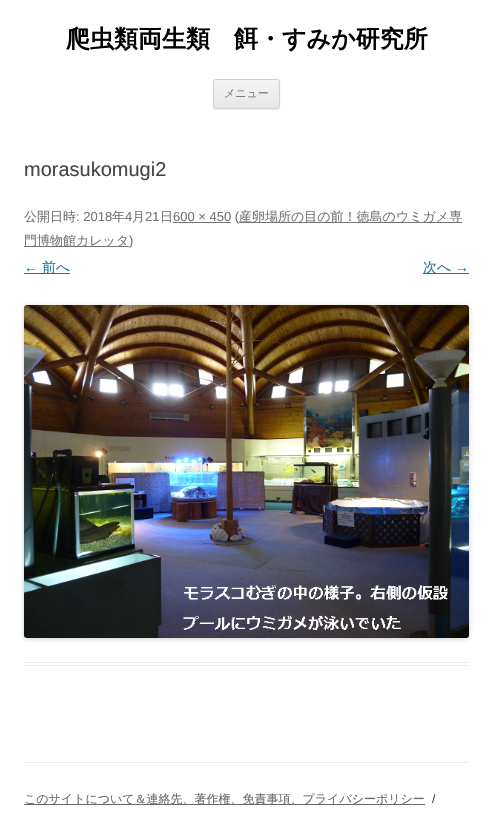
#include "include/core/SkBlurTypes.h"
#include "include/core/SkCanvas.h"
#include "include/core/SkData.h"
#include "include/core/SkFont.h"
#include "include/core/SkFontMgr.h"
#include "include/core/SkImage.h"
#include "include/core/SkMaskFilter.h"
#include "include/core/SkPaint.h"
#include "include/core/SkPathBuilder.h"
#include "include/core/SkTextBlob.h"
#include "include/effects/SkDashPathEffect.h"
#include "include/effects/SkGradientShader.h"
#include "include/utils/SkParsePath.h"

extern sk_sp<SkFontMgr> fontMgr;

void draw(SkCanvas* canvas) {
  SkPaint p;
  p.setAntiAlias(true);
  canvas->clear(SK_ColorWHITE);
  p.setColor(SkColorSetARGB(26, 64, 64, 64));
  p.setMaskFilter(SkMaskFilter::MakeBlur(kNormal_SkBlurStyle, 1));
  canvas->drawRoundRect(SkRect::MakeLTRB(213, 80, 280, 110), 3, 3, p);
  p.setMaskFilter(nullptr);
  canvas->save();
  canvas->clipPath(SkPathBuilder().moveTo(216, 79).lineTo(277, 79).cubicTo(278.5f, 79, 280, 80.5f, 280, 82).lineTo(280, 106).cubicTo(280, 107.5f, 278.5f, 109, 277, 109).lineTo(216, 109).cubicTo(214.5f, 109, 213, 107.5f, 213, 106).lineTo(213, 82).cubicTo(213, 80.5f, 214.5f, 79, 216, 79).close().detach(), true);
  {
    const SkColor colors[] = {SkColorSetRGB(244, 244, 244), SkColorSetRGB(230, 230, 230)};
    const float stops[] = {0, 1};
    const SkPoint ends[] = {{247, 80}, {247, 108}};
    p.setShader(SkGradientShader::MakeLinear(ends, colors, stops, 2, SkTileMode::kClamp));
    p.setAlpha(255);
  }
  canvas->drawRect(SkRect::MakeLTRB(213, 80, 280, 108), p);
  canvas->restore();
  p.setStyle(SkPaint::kStroke_Style);
  p.setStrokeWidth(1);
  p.setShader(nullptr);
  p.setColor(SkColorSetRGB(210, 210, 210));
  canvas->drawRoundRect(SkRect::MakeLTRB(213.5f, 79.5f, 279.5f, 108.5f), 2.5f, 2.5f, p);
  p.setStyle(SkPaint::kFill_Style);
  p.setColor(SkColorSetRGB(237, 237, 237));
  canvas->drawRect(SkRect::MakeLTRB(24, 662, 469, 663), p);
  canvas->drawRect(SkRect::MakeLTRB(24, 665, 469, 666), p);
  p.setColor(SkColorSetRGB(117, 117, 117));
  canvas->drawRect(SkRect::MakeLTRB(173, 222, 231, 223), p);
  canvas->drawRect(SkRect::MakeLTRB(239, 222, 462, 223), p);
  canvas->drawRect(SkRect::MakeLTRB(24, 246, 129, 247), p);
  p.setColor(SkColorSetRGB(33, 117, 155));
  canvas->drawRect(SkRect::MakeLTRB(24, 273, 70, 274), p);
  canvas->drawRect(SkRect::MakeLTRB(423, 273, 469, 274), p);
  p.setColor(SkColorSetARGB(51, 0, 0, 0));
  p.setMaskFilter(SkMaskFilter::MakeBlur(kNormal_SkBlurStyle, 2));
  canvas->drawRoundRect(SkRect::MakeLTRB(24, 306, 469, 639), 3, 3, p);
  p.setMaskFilter(nullptr);
  canvas->drawImageRect(SkImages::DeferredFromEncodedData(SkData::MakeFromFileName("images/1.png")), SkRect::MakeLTRB(24, 305, 469, 638), SkSamplingOptions());
  p.setColor(SkColorSetRGB(237, 237, 237));
  canvas->drawRect(SkRect::MakeLTRB(24, 762, 469, 763), p);
  p.setColor(SkColorSetRGB(104, 104, 104));
  canvas->drawRect(SkRect::MakeLTRB(24, 804, 425, 805), p);
  SkFont font1(fontMgr->matchFamilyStyle("WenQuanYi Zen Hei", SkFontStyle::Bold()), 24);
  font1.setSubpixel(true);
  p.setColor(SK_ColorBLACK);
  canvas->drawString("爬虫類両生類　餌・すみか研究所", 66, 47, font1, p);
  SkFont font2(fontMgr->matchFamilyStyle("WenQuanYi Zen Hei", SkFontStyle(500, SkFontStyle::kNormal_Width, SkFontStyle::kUpright_Slant)), 11);
  font2.setSubpixel(true);
  p.setColor(SkColorSetRGB(124, 124, 124));
  canvas->drawString("メニュー", 224, 97, font2, p);
  SkFont font3(fontMgr->matchFamilyStyle("Liberation Sans", SkFontStyle::Normal()), 20);
  font3.setSubpixel(true);
  p.setColor(SkColorSetRGB(68, 68, 68));
  canvas->drawString("morasukomugi2", 24, 176, font3, p);
  SkFont font4(fontMgr->matchFamilyStyle("WenQuanYi Zen Hei", SkFontStyle(500, SkFontStyle::kNormal_Width, SkFontStyle::kUpright_Slant)), 13);
  font4.setSubpixel(true);
  p.setColor(SkColorSetRGB(117, 117, 117));
  canvas->drawString("公開日時", 24, 221, font4, p);
  SkFont font5(fontMgr->matchFamilyStyle("Liberation Sans", SkFontStyle::Normal()), 13);
  font5.setSubpixel(true);
  canvas->drawString(": 2018", 76, 221, font5, p);
  canvas->drawString("年", 112, 221, font4, p);
  canvas->drawString("4", 125, 221, font5, p);
  canvas->drawString("月", 132, 221, font4, p);
  canvas->drawString("21", 145, 221, font5, p);
  canvas->drawString("日", 160, 221, font4, p);
  canvas->drawString("600 × 450 (", 173, 221, font5, p);
  canvas->drawString("産卵場所の目の前！徳島のウミガメ専", 239, 221, font4, p);
  canvas->drawString("門博物館カレッタ", 24, 245, font4, p);
  canvas->drawString(")", 129, 245, font5, p);
  SkFont font6(fontMgr->matchFamilyStyle("Liberation Sans", SkFontStyle::Normal()), 14);
  font6.setSubpixel(true);
  p.setColor(SkColorSetRGB(33, 117, 155));
  canvas->drawString("←", 24, 272, font6, p);
  SkFont font7(fontMgr->matchFamilyStyle("WenQuanYi Zen Hei", SkFontStyle(500, SkFontStyle::kNormal_Width, SkFontStyle::kUpright_Slant)), 14);
  font7.setSubpixel(true);
  canvas->drawString("前へ", 42, 272, font7, p);
  canvas->drawString("次へ", 423, 272, font7, p);
  canvas->drawString("→", 455, 272, font6, p);
  SkFont font8(fontMgr->matchFamilyStyle("WenQuanYi Zen Hei", SkFontStyle(500, SkFontStyle::kNormal_Width, SkFontStyle::kUpright_Slant)), 12);
  font8.setSubpixel(true);
  p.setColor(SkColorSetRGB(104, 104, 104));
  canvas->drawString("このサイトについて＆連絡先、著作権、免責事項、プライバシーポリシー", 24, 803, font8, p);
  SkFont font9(fontMgr->matchFamilyStyle("Liberation Sans", SkFontStyle::Normal()), 12);
  font9.setSubpixel(true);
  p.setColor(SkColorSetRGB(68, 68, 68));
  canvas->drawString("/", 432, 803, font9, p);
}
